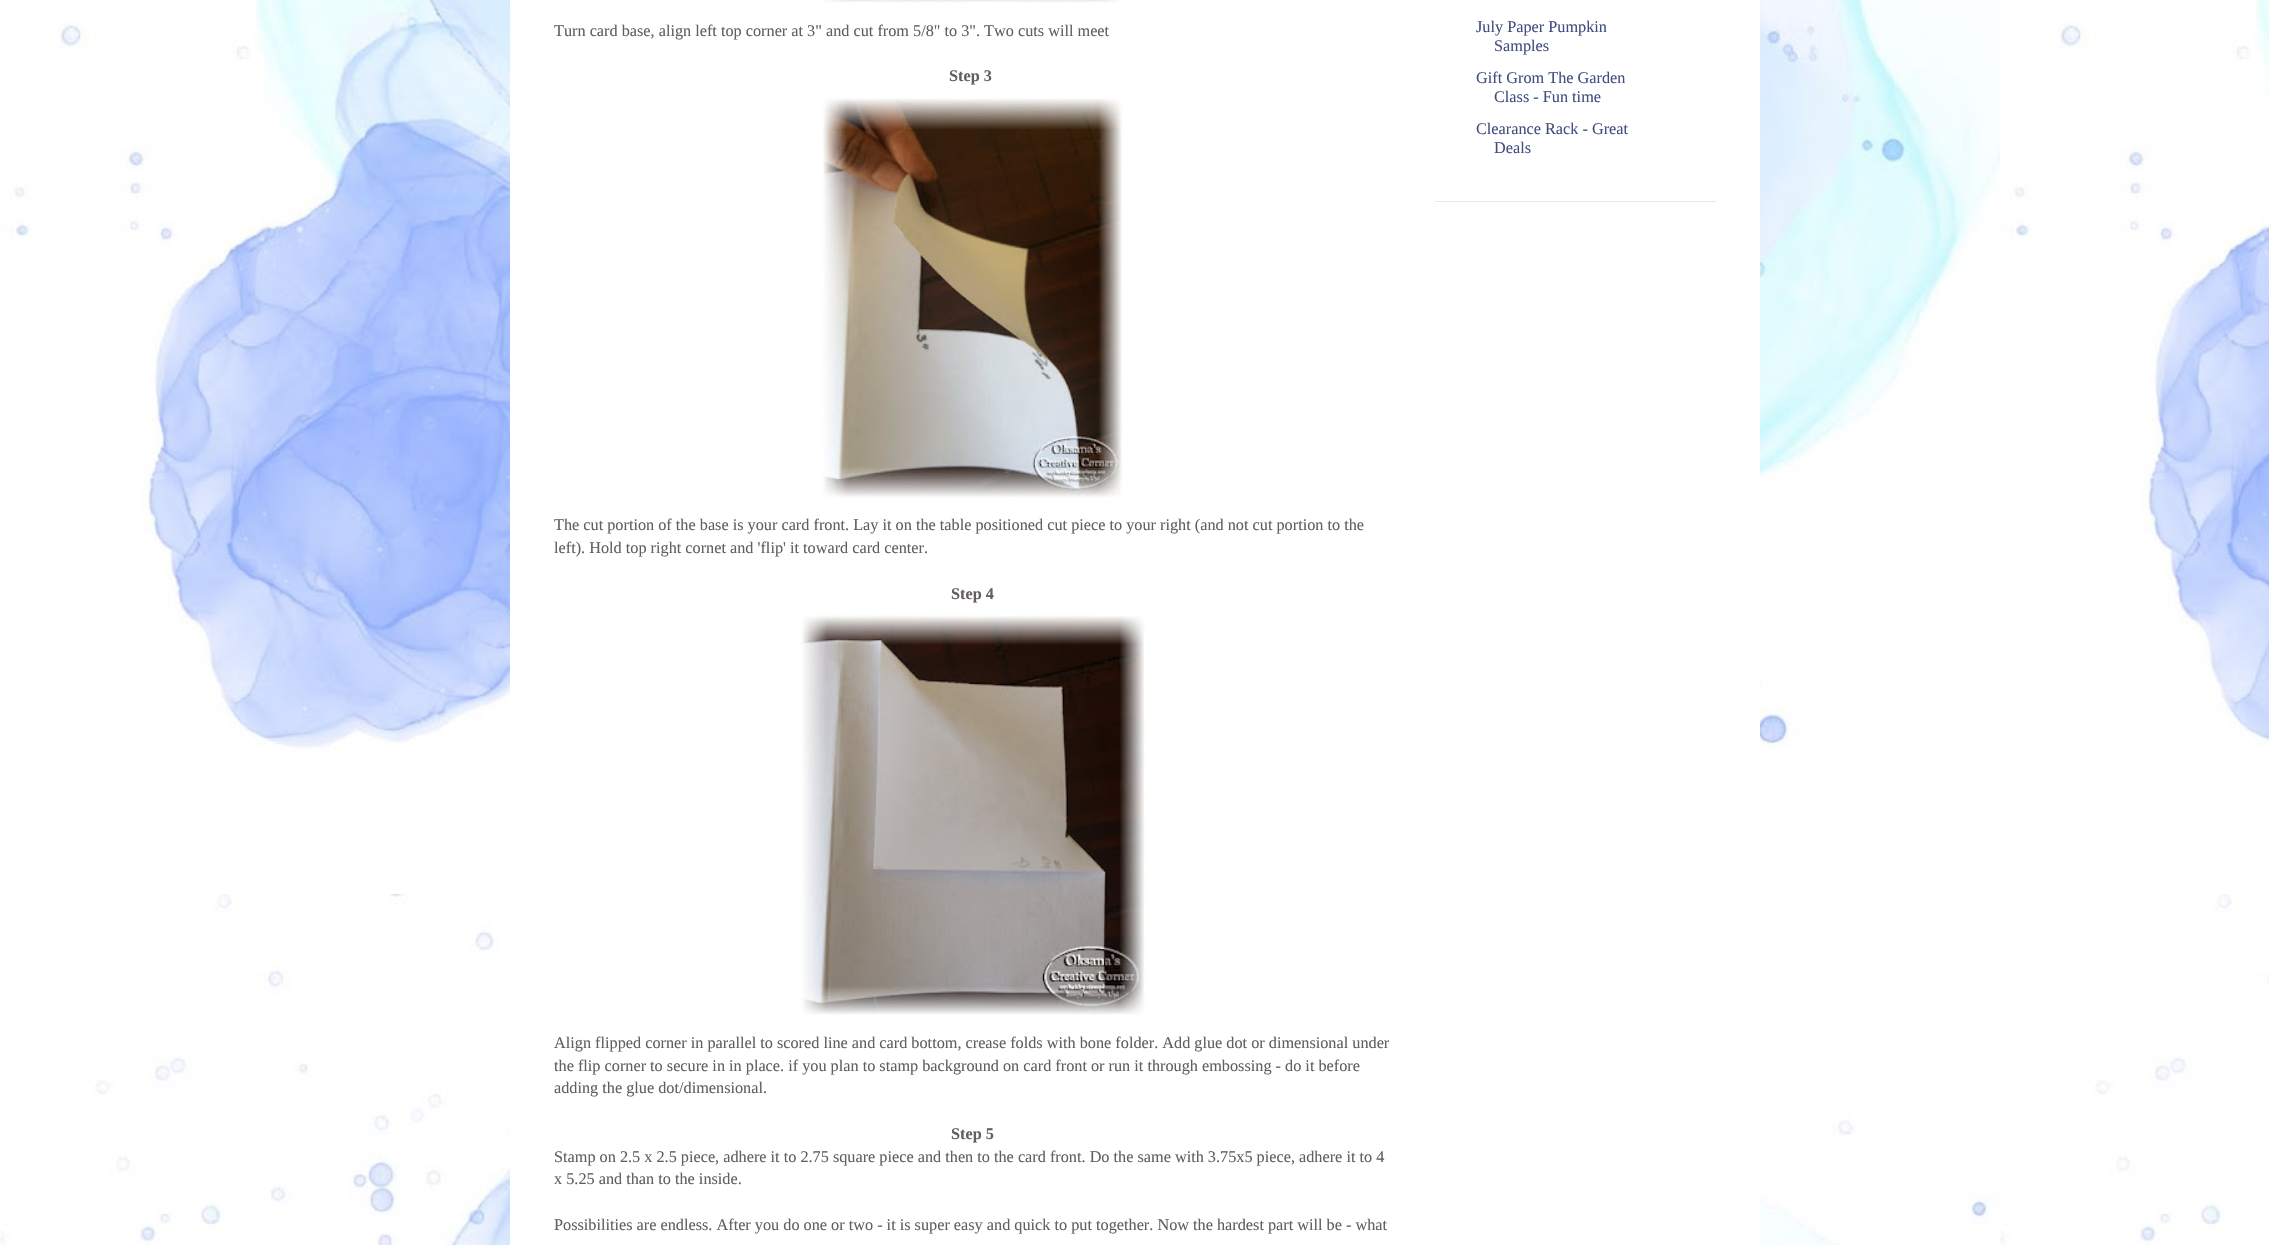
#include "include/core/SkBlurTypes.h"
#include "include/core/SkCanvas.h"
#include "include/core/SkData.h"
#include "include/core/SkFont.h"
#include "include/core/SkFontMgr.h"
#include "include/core/SkImage.h"
#include "include/core/SkMaskFilter.h"
#include "include/core/SkPaint.h"
#include "include/core/SkPathBuilder.h"
#include "include/core/SkTextBlob.h"
#include "include/effects/SkDashPathEffect.h"
#include "include/effects/SkGradientShader.h"
#include "include/utils/SkParsePath.h"

extern sk_sp<SkFontMgr> fontMgr;

void draw(SkCanvas* canvas) {
  SkPaint p;
  p.setAntiAlias(true);
  canvas->clear(SK_ColorWHITE);
  canvas->drawImageRect(SkImages::DeferredFromEncodedData(SkData::MakeFromFileName("images/1.png")), SkRect::MakeLTRB(0, 0, 2269, 1245), SkSamplingOptions());
  p.setColor(SK_ColorWHITE);
  canvas->drawRect(SkRect::MakeLTRB(510, 0, 1760, 1245), p);
  canvas->drawImageRect(SkImages::DeferredFromEncodedData(SkData::MakeFromFileName("images/2.png")), SkRect::MakeLTRB(825, 0, 1119, 3), SkSamplingOptions());
  canvas->drawImageRect(SkImages::DeferredFromEncodedData(SkData::MakeFromFileName("images/3.png")), SkRect::MakeLTRB(822, 98, 1123, 498), SkSamplingOptions());
  canvas->drawImageRect(SkImages::DeferredFromEncodedData(SkData::MakeFromFileName("images/4.png")), SkRect::MakeLTRB(801, 615, 1145, 1015), SkSamplingOptions());
  p.setColor(SkColorSetRGB(232, 232, 232));
  canvas->drawRect(SkRect::MakeLTRB(1435, 201, 1716, 202), p);
  SkFont font1(fontMgr->matchFamilyStyle("Liberation Serif", SkFontStyle::Normal()), 16.25f);
  font1.setSubpixel(true);
  p.setColor(SkColorSetRGB(100, 94, 94));
  canvas->drawString("Turn card base, align left top corner at 3\" and cut from 5/8\" to 3\". Two cuts will meet", 554, 36, font1, p);
  SkFont font2(fontMgr->matchFamilyStyle("Liberation Serif", SkFontStyle::Bold()), 16.25f);
  font2.setSubpixel(true);
  canvas->drawString("Step 3", 949, 81, font2, p);
  canvas->drawString("The cut portion of the base is your card front. Lay it on the table positioned cut piece to your right (and not cut portion to the", 554, 530, font1, p);
  canvas->drawString("left). Hold top right cornet and 'flip' it toward card center.", 554, 553, font1, p);
  canvas->drawString("Step 4", 951, 599, font2, p);
  canvas->drawString("Align flipped corner in parallel to scored line and card bottom, crease folds with bone folder. Add glue dot or dimensional under", 554, 1048, font1, p);
  canvas->drawString("the flip corner to secure in in place. if you plan to stamp background on card front or run it through embossing - do it before", 554, 1071, font1, p);
  canvas->drawString("adding the glue dot/dimensional.", 554, 1093, font1, p);
  canvas->drawString("Step 5", 951, 1139, font2, p);
  canvas->drawString("Stamp on 2.5 x 2.5 piece, adhere it to 2.75 square piece and then to the card front. Do the same with 3.75x5 piece, adhere it to 4", 554, 1162, font1, p);
  canvas->drawString("x 5.25 and than to the inside.", 554, 1184, font1, p);
  canvas->drawString("Possibilities are endless. After you do one or two - it is super easy and quick to put together. Now the hardest part will be - what", 554, 1230, font1, p);
  p.setColor(SkColorSetRGB(66, 77, 128));
  canvas->drawString("July Paper Pumpkin", 1476, 32, font1, p);
  canvas->drawString("Samples", 1494, 51, font1, p);
  canvas->drawString("Gift Grom The Garden", 1476, 83, font1, p);
  canvas->drawString("Class - Fun time", 1494, 102, font1, p);
  canvas->drawString("Clearance Rack - Great", 1476, 134, font1, p);
  canvas->drawString("Deals", 1494, 153, font1, p);
}
